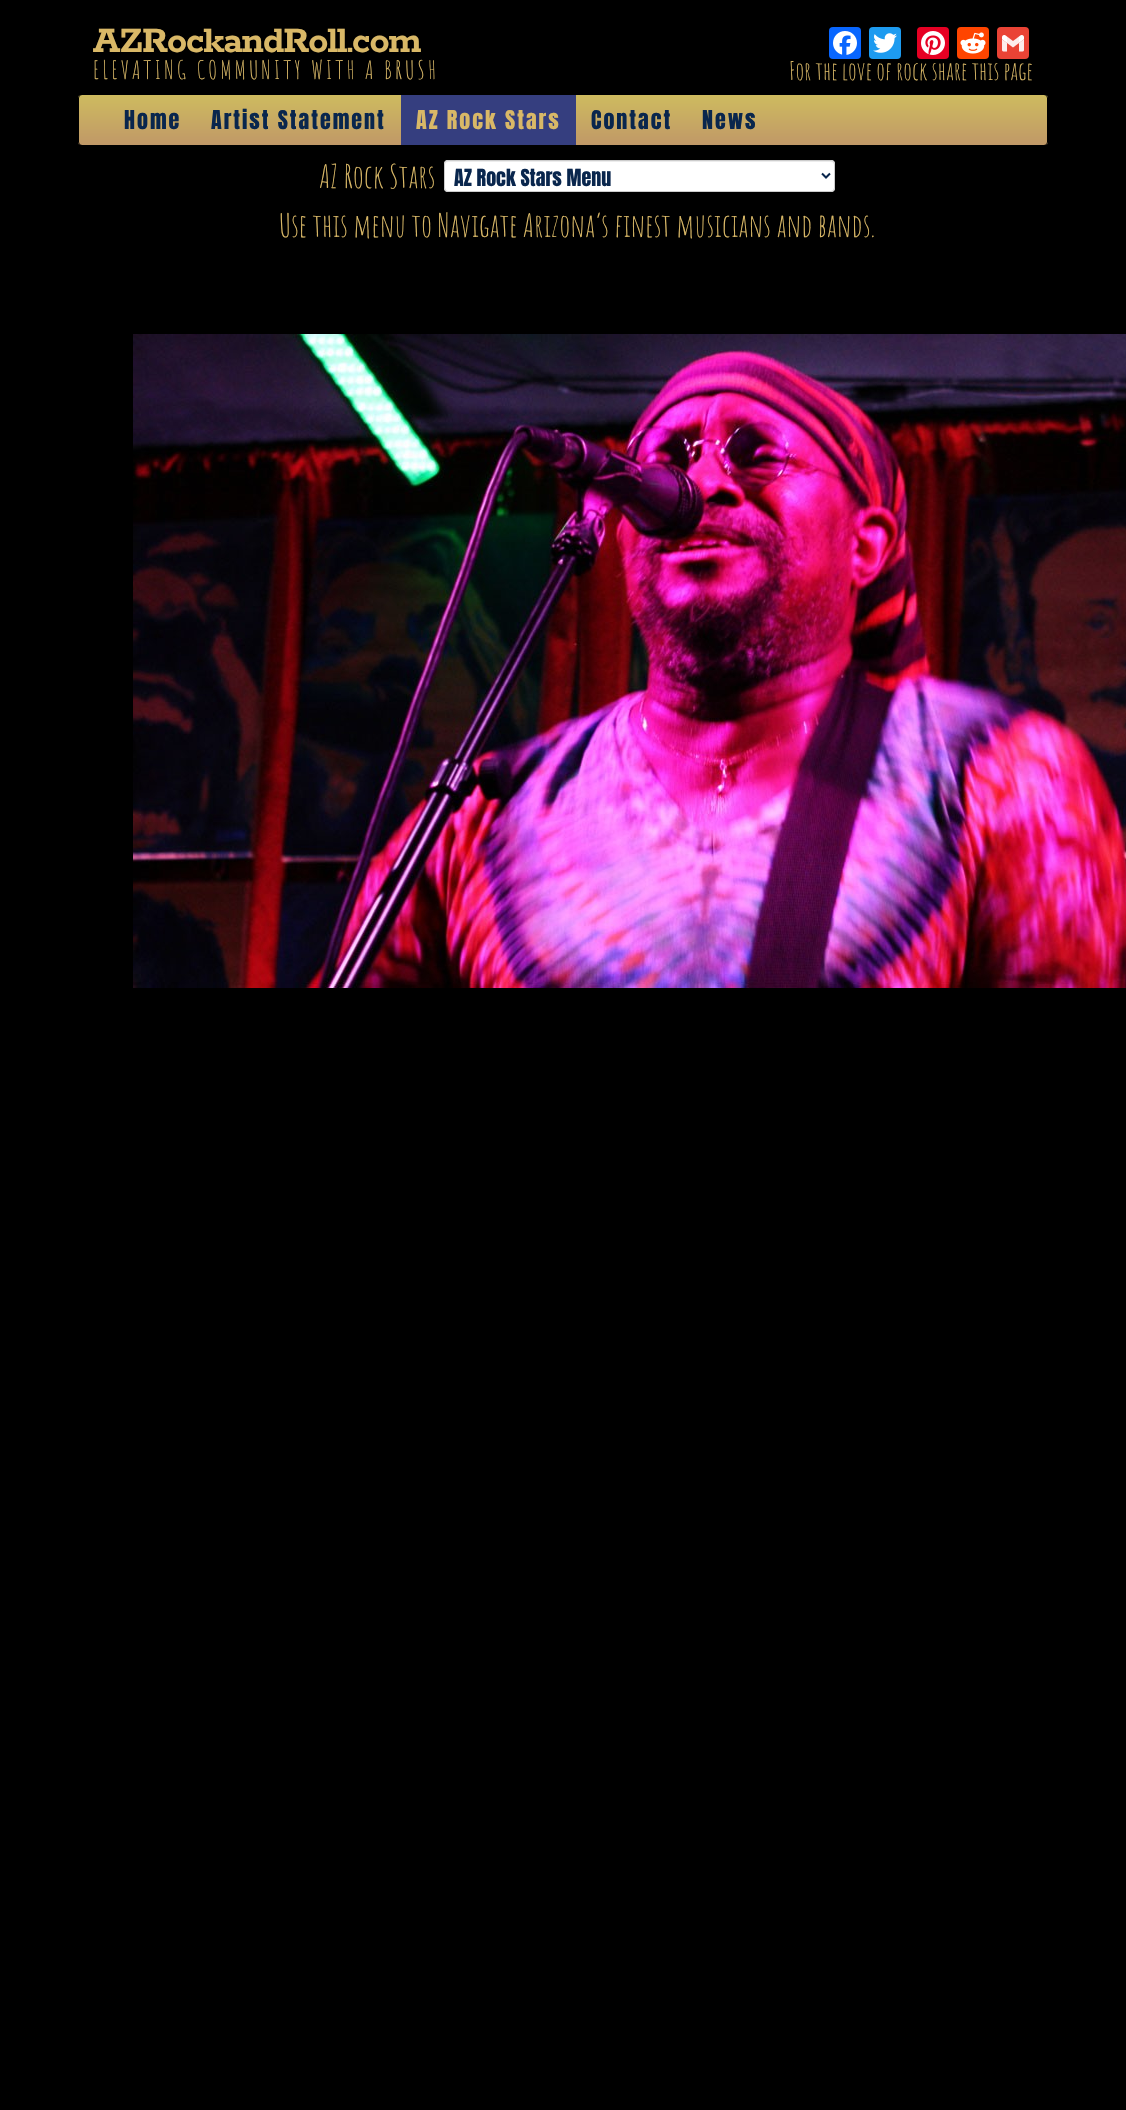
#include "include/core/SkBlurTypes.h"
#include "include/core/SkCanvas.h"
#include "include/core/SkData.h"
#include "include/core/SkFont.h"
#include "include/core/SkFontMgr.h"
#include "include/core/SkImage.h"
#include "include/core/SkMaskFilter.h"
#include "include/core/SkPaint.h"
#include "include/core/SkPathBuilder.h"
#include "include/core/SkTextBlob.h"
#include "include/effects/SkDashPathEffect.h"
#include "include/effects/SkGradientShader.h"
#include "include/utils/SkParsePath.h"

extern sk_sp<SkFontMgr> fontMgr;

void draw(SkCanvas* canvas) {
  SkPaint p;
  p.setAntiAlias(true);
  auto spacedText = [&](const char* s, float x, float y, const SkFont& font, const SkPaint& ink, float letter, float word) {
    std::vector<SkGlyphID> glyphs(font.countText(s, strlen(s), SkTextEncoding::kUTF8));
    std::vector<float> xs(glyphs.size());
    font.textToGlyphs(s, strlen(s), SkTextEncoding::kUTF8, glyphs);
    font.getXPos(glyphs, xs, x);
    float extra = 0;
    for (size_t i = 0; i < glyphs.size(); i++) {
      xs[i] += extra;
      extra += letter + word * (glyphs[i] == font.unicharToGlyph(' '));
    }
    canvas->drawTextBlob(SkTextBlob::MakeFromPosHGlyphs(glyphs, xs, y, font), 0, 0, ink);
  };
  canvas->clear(SK_ColorBLACK);
  p.setColor(SkColorSetRGB(8, 102, 255));
  canvas->drawRoundRect(SkRect::MakeLTRB(829, 27, 861, 59), 4, 4, p);
  canvas->drawImageRect(SkImages::DeferredFromEncodedData(SkData::MakeFromFileName("images/1.png")), SkRect::MakeLTRB(833, 31, 857, 55), SkSamplingOptions());
  p.setColor(SkColorSetRGB(29, 155, 240));
  canvas->drawRoundRect(SkRect::MakeLTRB(869, 27, 901, 59), 4, 4, p);
  canvas->drawImageRect(SkImages::DeferredFromEncodedData(SkData::MakeFromFileName("images/2.png")), SkRect::MakeLTRB(873, 33, 897, 53), SkSamplingOptions());
  p.setColor(SkColorSetRGB(230, 0, 35));
  canvas->drawRoundRect(SkRect::MakeLTRB(917, 27, 949, 59), 4, 4, p);
  canvas->drawImageRect(SkImages::DeferredFromEncodedData(SkData::MakeFromFileName("images/3.png")), SkRect::MakeLTRB(921, 31, 945, 55), SkSamplingOptions());
  p.setColor(SkColorSetRGB(255, 69, 0));
  canvas->drawRoundRect(SkRect::MakeLTRB(957, 27, 989, 59), 4, 4, p);
  canvas->drawImageRect(SkImages::DeferredFromEncodedData(SkData::MakeFromFileName("images/4.png")), SkRect::MakeLTRB(960, 32, 986, 54), SkSamplingOptions());
  p.setColor(SkColorSetRGB(234, 67, 53));
  canvas->drawRoundRect(SkRect::MakeLTRB(997, 27, 1029, 59), 4, 4, p);
  canvas->drawImageRect(SkImages::DeferredFromEncodedData(SkData::MakeFromFileName("images/5.png")), SkRect::MakeLTRB(1002, 35, 1024, 52), SkSamplingOptions());
  canvas->save();
  canvas->clipPath(SkPathBuilder().moveTo(82, 94).lineTo(1044, 94).cubicTo(1046, 94, 1048, 96, 1048, 98).lineTo(1048, 142).cubicTo(1048, 144, 1046, 146, 1044, 146).lineTo(82, 146).cubicTo(80, 146, 78, 144, 78, 142).lineTo(78, 98).cubicTo(78, 96, 80, 94, 82, 94).close().detach(), true);
  {
    const SkColor colors[] = {SkColorSetRGB(206, 187, 95), SkColorSetRGB(192, 152, 103)};
    const float stops[] = {0, 1};
    const SkPoint ends[] = {{563, 95}, {563, 145}};
    p.setShader(SkGradientShader::MakeLinear(ends, colors, stops, 2, SkTileMode::kClamp));
    p.setAlpha(255);
  }
  canvas->drawRect(SkRect::MakeLTRB(78, 95, 1048, 145), p);
  canvas->restore();
  p.setStyle(SkPaint::kStroke_Style);
  p.setStrokeWidth(1);
  p.setShader(nullptr);
  p.setColor(SK_ColorBLACK);
  canvas->drawRoundRect(SkRect::MakeLTRB(78.5f, 94.5f, 1047.5f, 145.5f), 3.5f, 3.5f, p);
  p.setStyle(SkPaint::kFill_Style);
  p.setColor(SkColorSetRGB(53, 62, 127));
  canvas->drawRect(SkRect::MakeLTRB(401, 95, 576, 145), p);
  p.setColor(SK_ColorWHITE);
  canvas->drawRoundRect(SkRect::MakeLTRB(444, 160, 835, 192), 4, 4, p);
  p.setColor(SkColorSetRGB(236, 236, 236));
  canvas->drawPath(SkPathBuilder().moveTo(448, 162).lineTo(831, 162).cubicTo(833, 162, 834, 163, 834, 165).cubicTo(834, 163, 833, 161, 831, 161).lineTo(448, 161).lineTo(446, 162).lineTo(445, 165).cubicTo(445, 163, 446, 162, 448, 162).close().detach(), p);
  p.setStyle(SkPaint::kStroke_Style);
  p.setColor(SkColorSetRGB(204, 204, 204));
  canvas->drawRoundRect(SkRect::MakeLTRB(444.5f, 160.5f, 834.5f, 191.5f), 3.5f, 3.5f, p);
  p.setStrokeWidth(2);
  p.setColor(SkColorSetRGB(9, 38, 77));
  canvas->drawPath(SkPathBuilder().moveTo(822, 173.5f).lineTo(826, 177.5f).lineTo(830, 173.5f).detach(), p);
  canvas->drawImageRect(SkImages::DeferredFromEncodedData(SkData::MakeFromFileName("images/6.png")), SkRect::MakeLTRB(133, 334, 1126, 988), SkSamplingOptions());
  SkFont font1(fontMgr->matchFamilyStyle("Rokkitt", SkFontStyle::Bold()), 40);
  font1.setSubpixel(true);
  p.setStyle(SkPaint::kFill_Style);
  p.setColor(SkColorSetRGB(217, 184, 103));
  spacedText("AZRockandRoll.com", 93, 52, font1, p, -1, 0);
  SkFont font2(fontMgr->matchFamilyStyle("Amatic SC", SkFontStyle::Normal()), 25);
  font2.setSubpixel(true);
  spacedText("ELEVATING COMMUNITY WITH A BRUSH", 93, 79, font2, p, 3, 0);
  canvas->drawString("For the love of rock share this page", 789, 80, font2, p);
  SkFont font3(fontMgr->matchFamilyStyle("Anton", SkFontStyle::Normal()), 22);
  font3.setSubpixel(true);
  p.setColor(SkColorSetRGB(9, 38, 77));
  spacedText("Home", 124, 129, font3, p, 2, 0);
  spacedText("Artist Statement", 211, 129, font3, p, 2, 0);
  p.setColor(SkColorSetRGB(217, 184, 103));
  spacedText("AZ Rock Stars", 416, 129, font3, p, 2, 0);
  p.setColor(SkColorSetRGB(9, 38, 77));
  spacedText("Contact", 591, 129, font3, p, 2, 0);
  spacedText("News", 702, 129, font3, p, 2, 0);
  SkFont font4(fontMgr->matchFamilyStyle("Amatic SC", SkFontStyle::Normal()), 32);
  font4.setSubpixel(true);
  p.setColor(SkColorSetRGB(217, 184, 103));
  canvas->drawString("AZ Rock Stars", 319, 188, font4, p);
  SkFont font5(fontMgr->matchFamilyStyle("Anton", SkFontStyle::Normal()), 20);
  font5.setSubpixel(true);
  p.setColor(SkColorSetRGB(9, 38, 77));
  canvas->drawString("AZ Rock Stars Menu", 454, 186, font5, p);
  p.setColor(SkColorSetRGB(217, 184, 103));
  canvas->drawString("Use this menu to Navigate Arizona’s finest musicians and bands.", 279, 237, font4, p);
}
